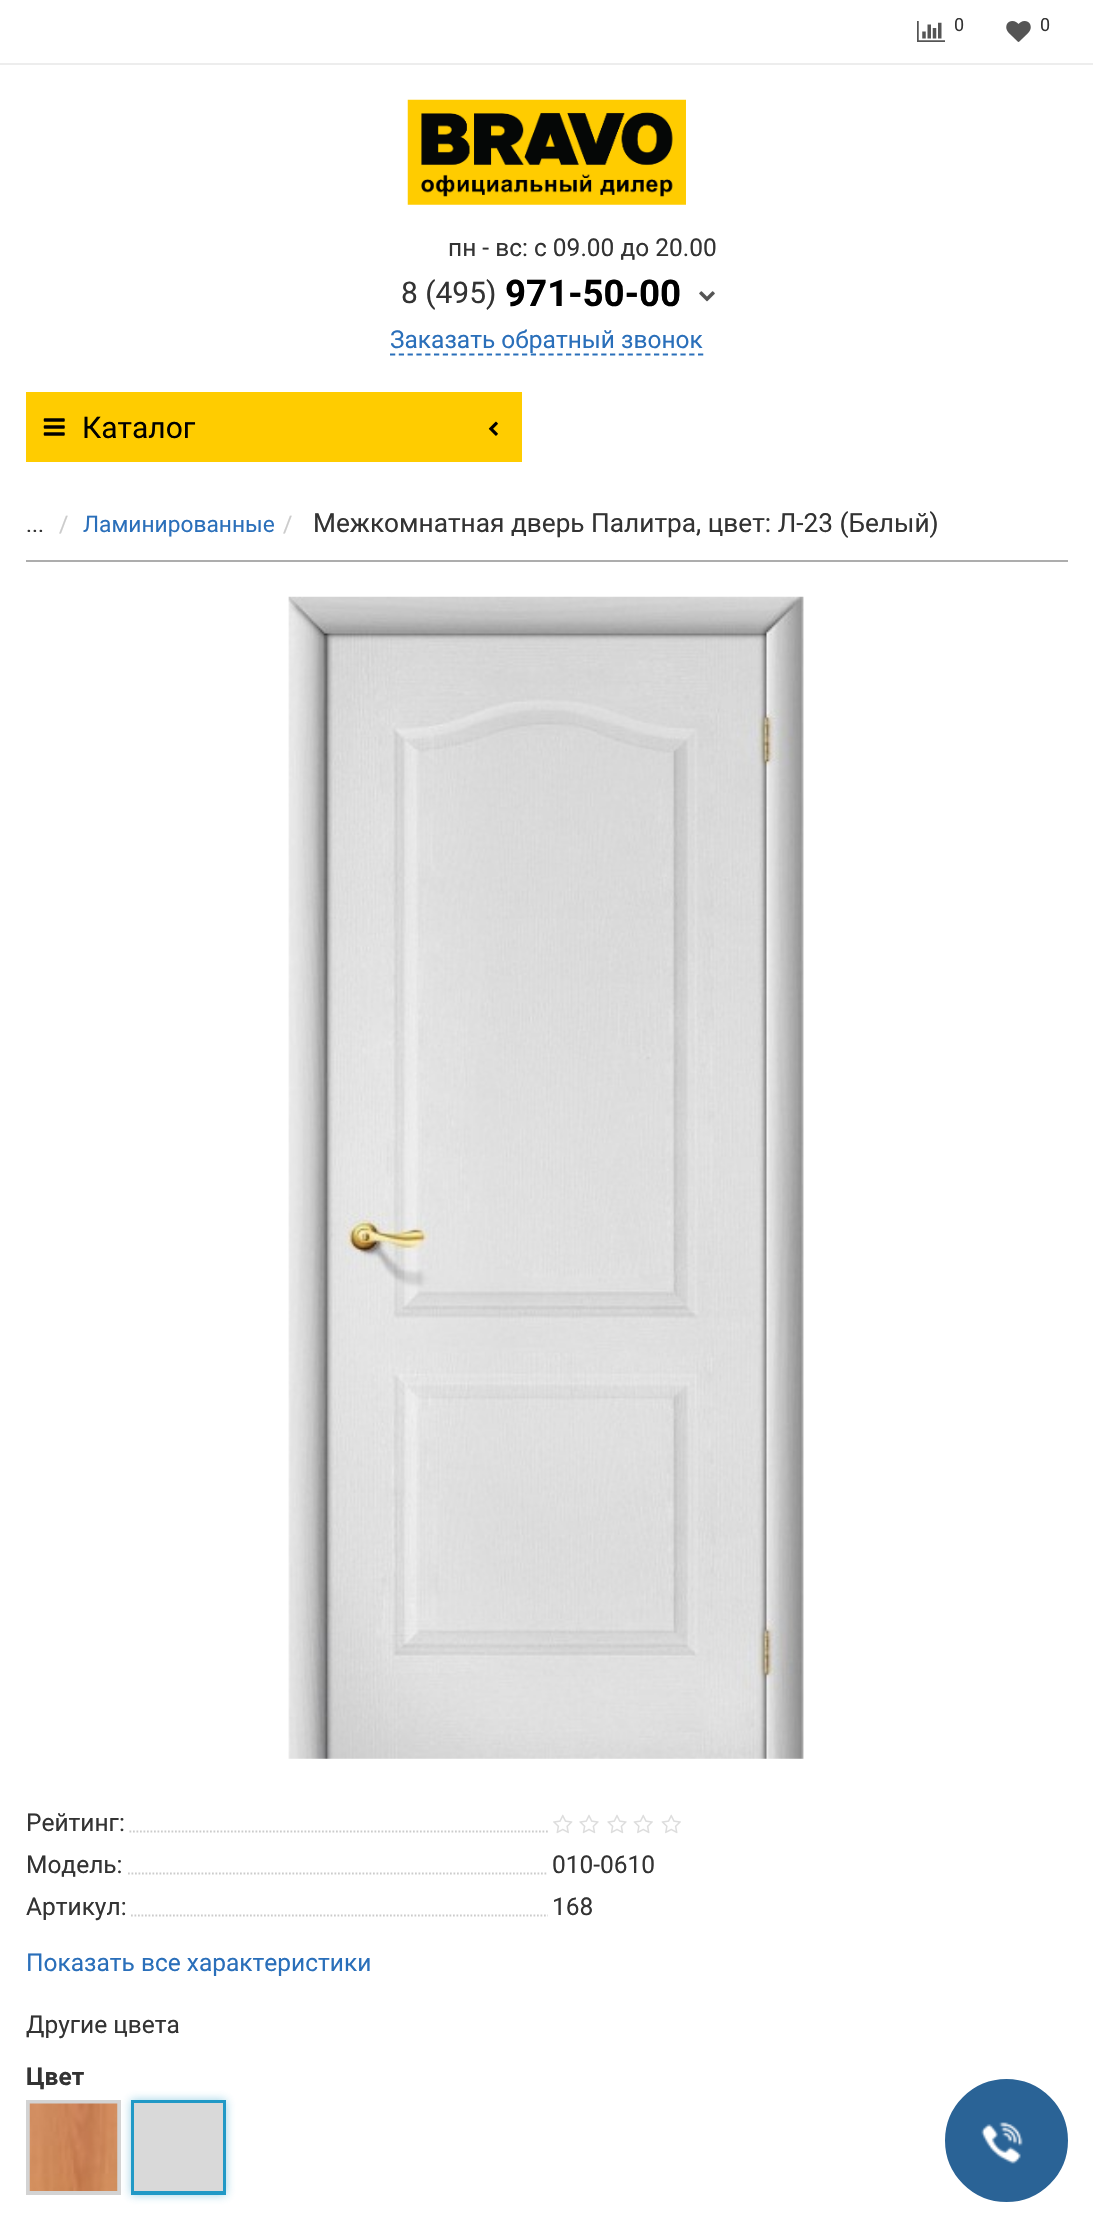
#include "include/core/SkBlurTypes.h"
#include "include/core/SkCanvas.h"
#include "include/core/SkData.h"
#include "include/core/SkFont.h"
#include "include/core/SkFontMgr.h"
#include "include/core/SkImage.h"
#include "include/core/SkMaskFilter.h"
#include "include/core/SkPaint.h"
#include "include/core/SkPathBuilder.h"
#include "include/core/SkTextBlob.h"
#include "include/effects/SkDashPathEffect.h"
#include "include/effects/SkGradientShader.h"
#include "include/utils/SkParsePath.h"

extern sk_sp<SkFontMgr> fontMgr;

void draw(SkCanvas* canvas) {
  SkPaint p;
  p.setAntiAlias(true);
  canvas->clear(SK_ColorWHITE);
  p.setColor(SkColorSetRGB(237, 237, 237));
  canvas->drawRect(SkRect::MakeLTRB(0, 63, 1093, 65), p);
  canvas->drawImageRect(SkImages::DeferredFromEncodedData(SkData::MakeFromFileName("images/1.png")), SkRect::MakeLTRB(917, 21, 945, 42), SkSamplingOptions());
  canvas->drawImageRect(SkImages::DeferredFromEncodedData(SkData::MakeFromFileName("images/2.png")), SkRect::MakeLTRB(1006, 21, 1031, 42), SkSamplingOptions());
  canvas->drawImageRect(SkImages::DeferredFromEncodedData(SkData::MakeFromFileName("images/3.png")), SkRect::MakeLTRB(407, 99, 686, 205), SkSamplingOptions());
  canvas->drawImageRect(SkImages::DeferredFromEncodedData(SkData::MakeFromFileName("images/4.png")), SkRect::MakeLTRB(699, 291, 715, 302), SkSamplingOptions());
  p.setStyle(SkPaint::kStroke_Style);
  p.setStrokeWidth(1.8f);
  p.setColor(SkColorSetRGB(42, 111, 186));
  p.setPathEffect(SkDashPathEffect::Make({{5.25f, 3.55f}}, 0));
  canvas->drawPath(SkPathBuilder().moveTo(390, 354.5f).lineTo(703.5f, 354.5f).detach(), p);
  p.setPathEffect(nullptr);
  p.setStyle(SkPaint::kFill_Style);
  p.setColor(SkColorSetRGB(255, 204, 0));
  canvas->drawRect(SkRect::MakeLTRB(26, 392, 522, 462), p);
  canvas->drawImageRect(SkImages::DeferredFromEncodedData(SkData::MakeFromFileName("images/5.png")), SkRect::MakeLTRB(43, 418, 65, 436), SkSamplingOptions());
  canvas->drawImageRect(SkImages::DeferredFromEncodedData(SkData::MakeFromFileName("images/6.png")), SkRect::MakeLTRB(488, 421, 498, 436), SkSamplingOptions());
  p.setColor(SkColorSetRGB(173, 173, 173));
  canvas->drawRect(SkRect::MakeLTRB(26, 560, 1068, 562), p);
  canvas->drawImageRect(SkImages::DeferredFromEncodedData(SkData::MakeFromFileName("images/7.png")), SkRect::MakeLTRB(288, 596, 804, 1759), SkSamplingOptions());
  canvas->save();
  canvas->clipRect(SkRect::MakeLTRB(26, 1803, 548, 1845));
  p.setStyle(SkPaint::kStroke_Style);
  p.setColor(SkColorSetRGB(204, 204, 204));
  p.setPathEffect(SkDashPathEffect::Make({{1.75f, 1.75f}}, 0));
  canvas->drawPath(SkPathBuilder().moveTo(129.5f, 1831.5f).lineTo(651, 1831.5f).detach(), p);
  p.setPathEffect(nullptr);
  canvas->restore();
  canvas->drawImageRect(SkImages::DeferredFromEncodedData(SkData::MakeFromFileName("images/8.png")), SkRect::MakeLTRB(553, 1814, 573, 1834), SkSamplingOptions());
  canvas->drawImageRect(SkImages::DeferredFromEncodedData(SkData::MakeFromFileName("images/9.png")), SkRect::MakeLTRB(579, 1814, 599, 1834), SkSamplingOptions());
  canvas->drawImageRect(SkImages::DeferredFromEncodedData(SkData::MakeFromFileName("images/9.png")), SkRect::MakeLTRB(607, 1814, 627, 1834), SkSamplingOptions());
  canvas->drawImageRect(SkImages::DeferredFromEncodedData(SkData::MakeFromFileName("images/10.png")), SkRect::MakeLTRB(633, 1814, 653, 1834), SkSamplingOptions());
  canvas->drawImageRect(SkImages::DeferredFromEncodedData(SkData::MakeFromFileName("images/10.png")), SkRect::MakeLTRB(661, 1814, 681, 1834), SkSamplingOptions());
  canvas->save();
  canvas->clipRect(SkRect::MakeLTRB(26, 1845, 548, 1887));
  p.setPathEffect(SkDashPathEffect::Make({{1.75f, 1.75f}}, 0));
  canvas->drawPath(SkPathBuilder().moveTo(128, 1873.5f).lineTo(649, 1873.5f).detach(), p);
  p.setPathEffect(nullptr);
  canvas->restore();
  canvas->save();
  canvas->clipRect(SkRect::MakeLTRB(26, 1887, 548, 1929));
  p.setPathEffect(SkDashPathEffect::Make({{1.75f, 1.75f}}, 0));
  canvas->drawPath(SkPathBuilder().moveTo(131, 1915.5f).lineTo(653, 1915.5f).detach(), p);
  p.setPathEffect(nullptr);
  canvas->restore();
  p.setStrokeWidth(4);
  p.setColor(SkColorSetRGB(211, 211, 211));
  canvas->drawRect(SkRect::MakeLTRB(28, 2102, 119, 2193), p);
  canvas->drawImageRect(SkImages::DeferredFromEncodedData(SkData::MakeFromFileName("images/11.png")), SkRect::MakeLTRB(29, 2103, 118, 2191), SkSamplingOptions());
  p.setStyle(SkPaint::kFill_Style);
  p.setColor(SkColorSetARGB(115, 33, 153, 198));
  p.setMaskFilter(SkMaskFilter::MakeBlur(kNormal_SkBlurStyle, 4.5f));
  canvas->drawRect(SkRect::MakeLTRB(131, 2100, 226, 2195), p);
  p.setMaskFilter(nullptr);
  p.setStyle(SkPaint::kStroke_Style);
  p.setColor(SkColorSetRGB(33, 153, 198));
  canvas->drawRect(SkRect::MakeLTRB(133, 2102, 224, 2193), p);
  p.setStyle(SkPaint::kFill_Style);
  p.setColor(SkColorSetRGB(217, 217, 217));
  canvas->drawRect(SkRect::MakeLTRB(134, 2103, 223, 2191), p);
  p.setColor(SkColorSetRGB(42, 99, 150));
  canvas->drawCircle(1006.5f, 2140.5f, 57, p);
  p.setStyle(SkPaint::kStroke_Style);
  p.setStrokeWidth(9);
  canvas->drawCircle(1006.5f, 2140.5f, 57, p);
  canvas->drawImageRect(SkImages::DeferredFromEncodedData(SkData::MakeFromFileName("images/12.png")), SkRect::MakeLTRB(981, 2122, 1023, 2164), SkSamplingOptions());
  SkFont font1(fontMgr->matchFamilyStyle("Roboto", SkFontStyle::Normal()), 18);
  font1.setSubpixel(true);
  p.setStyle(SkPaint::kFill_Style);
  p.setColor(SkColorSetRGB(51, 51, 51));
  canvas->drawString("0", 954, 31, font1, p);
  canvas->drawString("0", 1040, 31, font1, p);
  SkFont font2(fontMgr->matchFamilyStyle("Roboto", SkFontStyle::Normal()), 24.5f);
  font2.setSubpixel(true);
  canvas->drawString("пн - вс: с 09.00 до 20.00", 448, 256, font2, p);
  SkFont font3(fontMgr->matchFamilyStyle("Roboto", SkFontStyle::Normal()), 30);
  font3.setSubpixel(true);
  canvas->drawString("8 (495)", 401, 303, font3, p);
  SkFont font4(fontMgr->matchFamilyStyle("Roboto", SkFontStyle::Bold()), 36.75f);
  font4.setSubpixel(true);
  p.setColor(SK_ColorBLACK);
  canvas->drawString("971-50-00", 505, 306, font4, p);
  p.setColor(SkColorSetRGB(42, 111, 186));
  canvas->drawString("Заказать обратный звонок", 390, 348, font2, p);
  p.setColor(SK_ColorBLACK);
  canvas->drawString("Каталог", 82, 438, font3, p);
  SkFont font5(fontMgr->matchFamilyStyle("Roboto", SkFontStyle::Normal()), 22.75f);
  font5.setSubpixel(true);
  p.setColor(SkColorSetRGB(51, 51, 51));
  canvas->drawString("...", 26, 532, font5, p);
  p.setColor(SkColorSetRGB(204, 204, 204));
  canvas->drawString("/", 59, 532, font5, p);
  p.setColor(SkColorSetRGB(42, 111, 186));
  canvas->drawString("Ламинированные", 83, 532, font5, p);
  p.setColor(SkColorSetRGB(204, 204, 204));
  canvas->drawString("/", 283, 532, font5, p);
  SkFont font6(fontMgr->matchFamilyStyle("Roboto", SkFontStyle::Normal()), 26.25f);
  font6.setSubpixel(true);
  p.setColor(SkColorSetRGB(51, 51, 51));
  canvas->drawString("Межкомнатная дверь Палитра, цвет: Л-23 (Белый)", 313, 532, font6, p);
  canvas->drawString("Рейтинг:", 26, 1831, font2, p);
  canvas->drawString("Модель:", 26, 1873, font2, p);
  canvas->drawString("010-0610", 552, 1873, font2, p);
  canvas->drawString("Артикул:", 26, 1915, font2, p);
  canvas->drawString("168", 552, 1915, font2, p);
  p.setColor(SkColorSetRGB(42, 111, 186));
  canvas->drawString("Показать все характеристики", 26, 1971, font2, p);
  p.setColor(SkColorSetRGB(51, 51, 51));
  canvas->drawString("Другие цвета", 26, 2033, font2, p);
  SkFont font7(fontMgr->matchFamilyStyle("Roboto", SkFontStyle::Bold()), 24.5f);
  font7.setSubpixel(true);
  canvas->drawString("Цвет", 26, 2085, font7, p);
}
